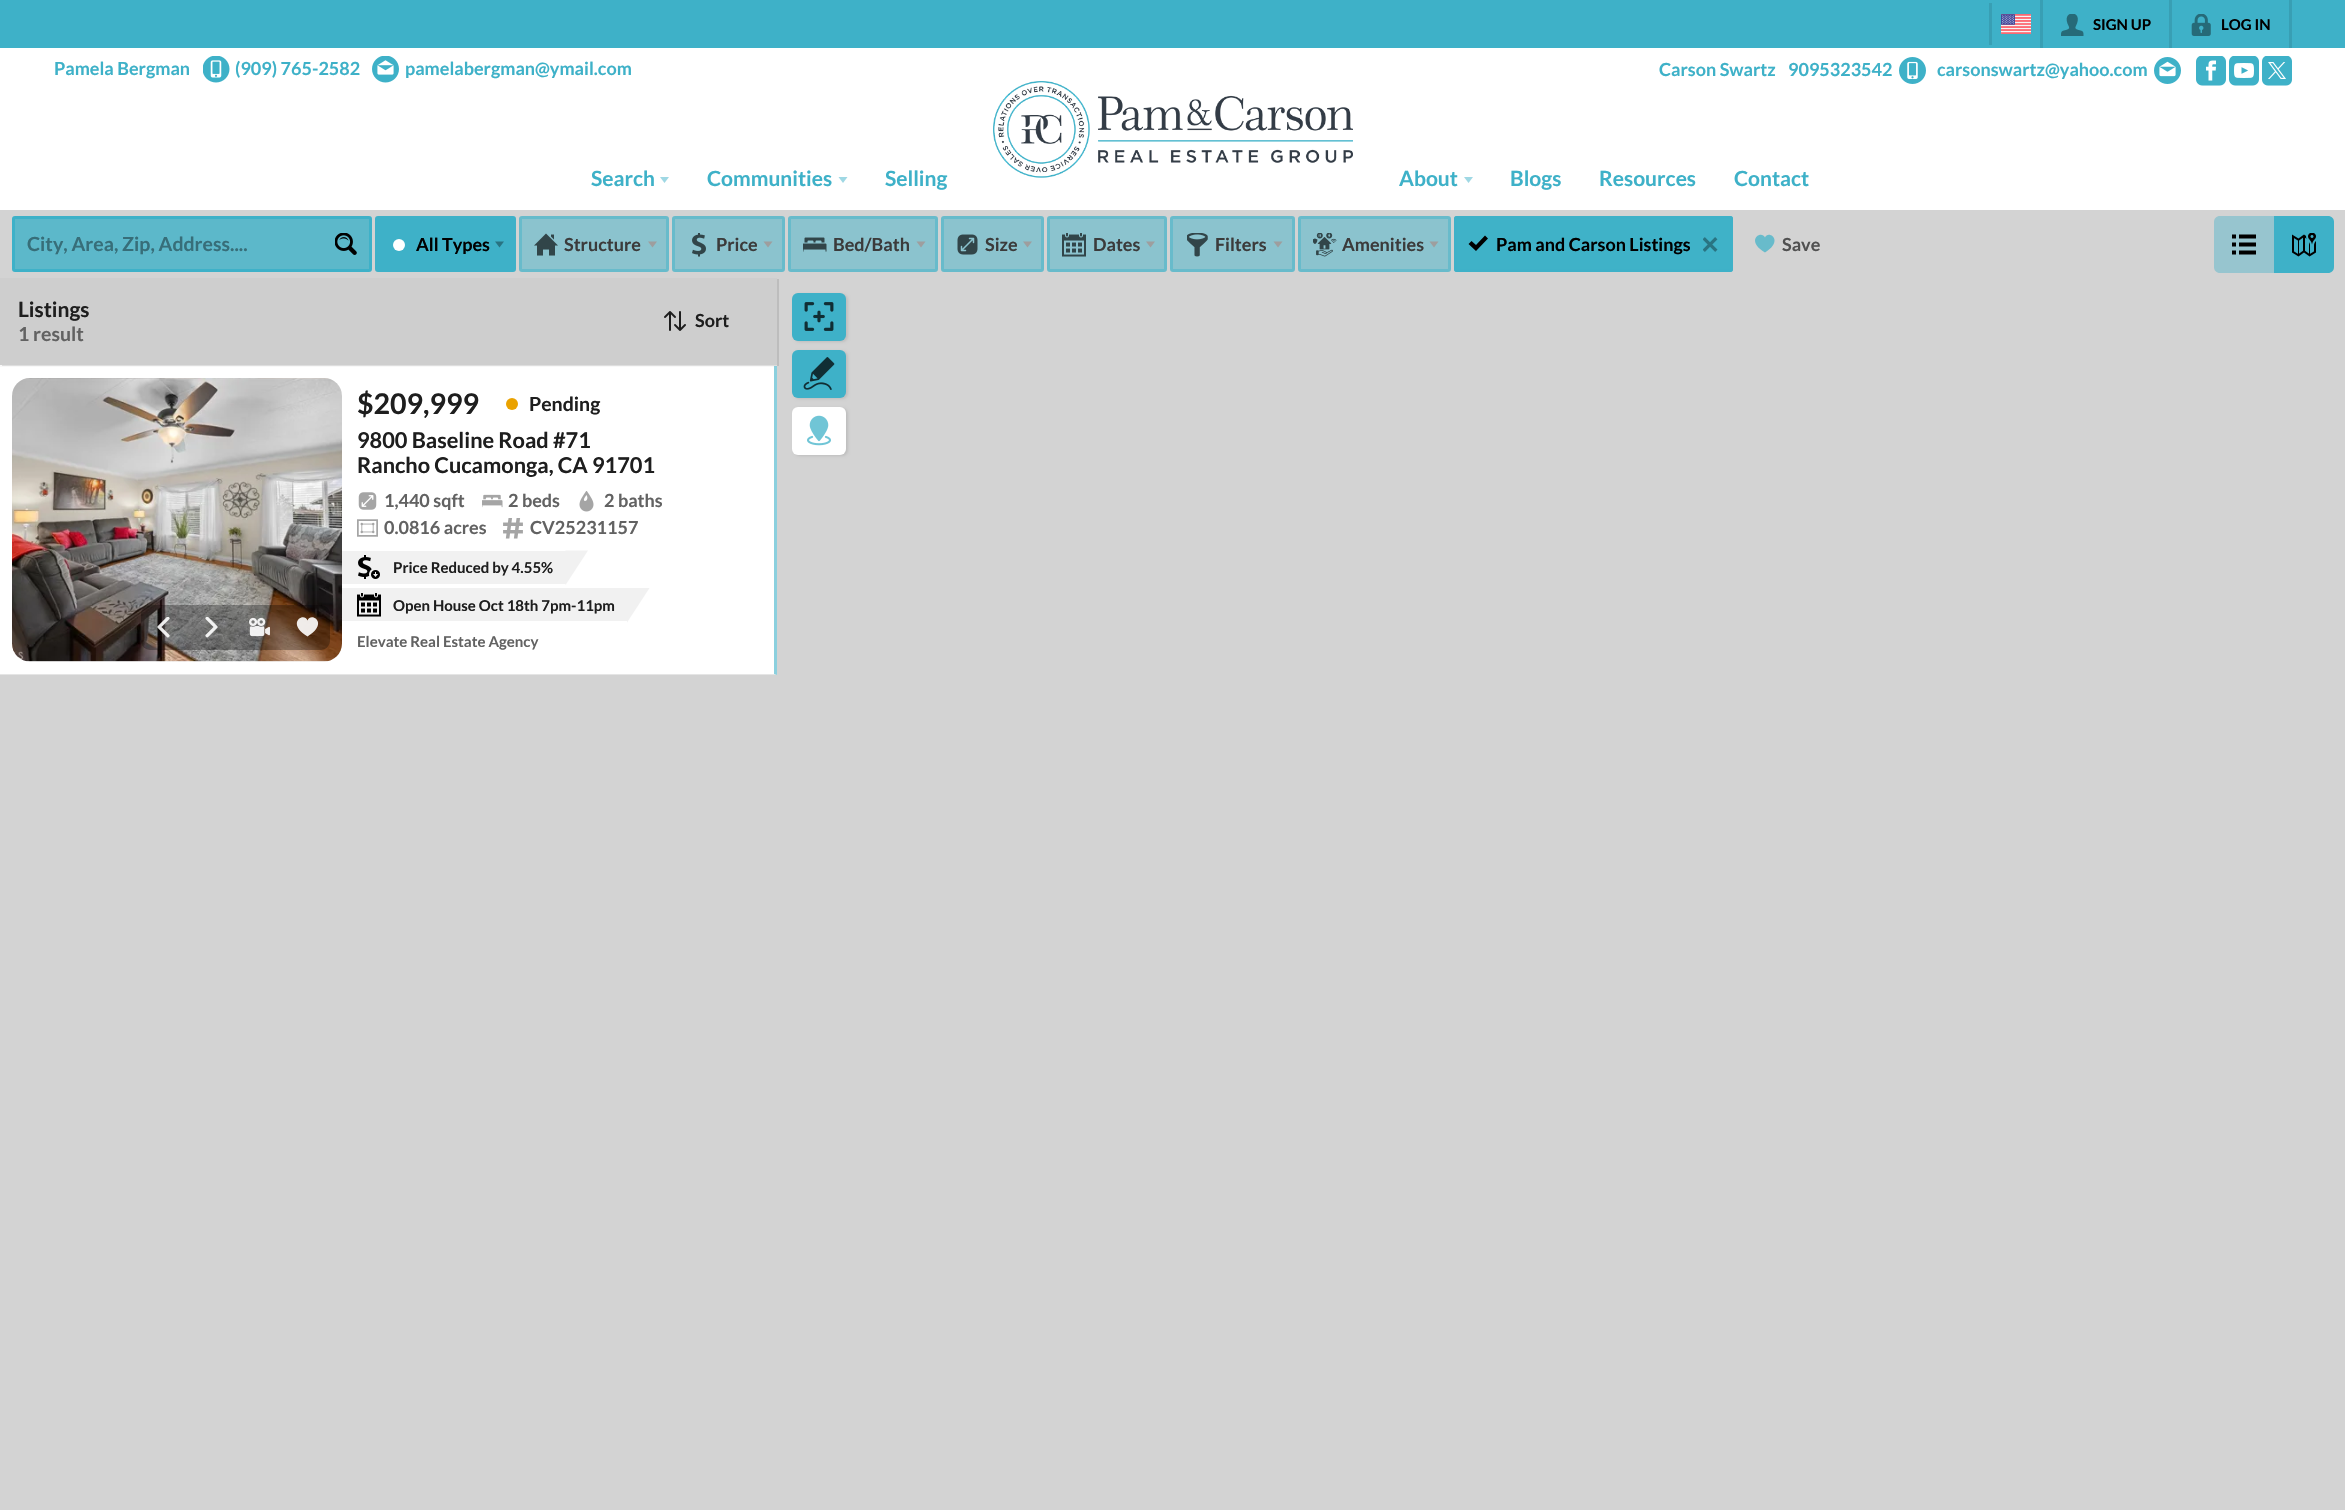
#include "include/core/SkBlurTypes.h"
#include "include/core/SkCanvas.h"
#include "include/core/SkData.h"
#include "include/core/SkFont.h"
#include "include/core/SkFontMgr.h"
#include "include/core/SkImage.h"
#include "include/core/SkMaskFilter.h"
#include "include/core/SkPaint.h"
#include "include/core/SkPathBuilder.h"
#include "include/core/SkTextBlob.h"
#include "include/effects/SkDashPathEffect.h"
#include "include/effects/SkGradientShader.h"
#include "include/utils/SkParsePath.h"

extern sk_sp<SkFontMgr> fontMgr;

void draw(SkCanvas* canvas) {
  SkPaint p;
  p.setAntiAlias(true);
  canvas->clear(SkColorSetRGB(211, 211, 211));
  p.setColor(SkColorSetRGB(62, 177, 200));
  canvas->drawRect(SkRect::MakeLTRB(0, 0, 2345, 48), p);
  p.setColor(SkColorSetRGB(56, 159, 180));
  canvas->drawRect(SkRect::MakeLTRB(1989, 3, 1992, 45), p);
  canvas->drawImageRect(SkImages::DeferredFromEncodedData(SkData::MakeFromFileName("images/1.png")), SkRect::MakeLTRB(2001, 14, 2031, 34), SkSamplingOptions());
  canvas->drawRect(SkRect::MakeLTRB(2289, 0, 2292, 48), p);
  canvas->drawRect(SkRect::MakeLTRB(2040, 0, 2043, 48), p);
  canvas->drawImageRect(SkImages::DeferredFromEncodedData(SkData::MakeFromFileName("images/2.png")), SkRect::MakeLTRB(2061, 14, 2084, 36), SkSamplingOptions());
  canvas->drawRect(SkRect::MakeLTRB(2169, 0, 2172, 48), p);
  canvas->drawImageRect(SkImages::DeferredFromEncodedData(SkData::MakeFromFileName("images/3.png")), SkRect::MakeLTRB(2191, 14, 2211, 36), SkSamplingOptions());
  p.setColor(SK_ColorWHITE);
  canvas->drawRect(SkRect::MakeLTRB(0, 48, 2345, 210), p);
  canvas->drawImageRect(SkImages::DeferredFromEncodedData(SkData::MakeFromFileName("images/4.png")), SkRect::MakeLTRB(203, 56, 230, 83), SkSamplingOptions());
  canvas->drawImageRect(SkImages::DeferredFromEncodedData(SkData::MakeFromFileName("images/5.png")), SkRect::MakeLTRB(372, 56, 399, 83), SkSamplingOptions());
  p.setColor(SkColorSetRGB(159, 216, 228));
  canvas->drawPath(SkPathBuilder().moveTo(660, 177).lineTo(669, 177).lineTo(664.5f, 183).close().detach(), p);
  canvas->drawPath(SkPathBuilder().moveTo(838.5f, 177).lineTo(847.5f, 177).lineTo(843, 183).close().detach(), p);
  canvas->drawImageRect(SkImages::DeferredFromEncodedData(SkData::MakeFromFileName("images/6.png")), SkRect::MakeLTRB(993, 81, 1353, 178), SkSamplingOptions());
  canvas->drawImageRect(SkImages::DeferredFromEncodedData(SkData::MakeFromFileName("images/7.png")), SkRect::MakeLTRB(1899, 57, 1926, 84), SkSamplingOptions());
  canvas->drawImageRect(SkImages::DeferredFromEncodedData(SkData::MakeFromFileName("images/8.png")), SkRect::MakeLTRB(2154, 57, 2181, 84), SkSamplingOptions());
  canvas->drawImageRect(SkImages::DeferredFromEncodedData(SkData::MakeFromFileName("images/9.png")), SkRect::MakeLTRB(2196, 56, 2226, 86), SkSamplingOptions());
  canvas->drawImageRect(SkImages::DeferredFromEncodedData(SkData::MakeFromFileName("images/10.png")), SkRect::MakeLTRB(2229, 56, 2259, 86), SkSamplingOptions());
  canvas->drawImageRect(SkImages::DeferredFromEncodedData(SkData::MakeFromFileName("images/11.png")), SkRect::MakeLTRB(2262, 56, 2292, 86), SkSamplingOptions());
  canvas->drawPath(SkPathBuilder().moveTo(1464, 177).lineTo(1473, 177).lineTo(1468.5f, 183).close().detach(), p);
  p.setColor(SkColorSetRGB(92, 184, 202));
  canvas->drawRoundRect(SkRect::MakeLTRB(13.5f, 217.5f, 370.5f, 270.5f), 1.5f, 1.5f, p);
  p.setStyle(SkPaint::kStroke_Style);
  p.setStrokeWidth(3);
  p.setColor(SkColorSetRGB(62, 177, 200));
  canvas->drawRoundRect(SkRect::MakeLTRB(13.5f, 217.5f, 370.5f, 270.5f), 1.5f, 1.5f, p);
  canvas->drawImageRect(SkImages::DeferredFromEncodedData(SkData::MakeFromFileName("images/12.png")), SkRect::MakeLTRB(335, 233, 357, 255), SkSamplingOptions());
  p.setStyle(SkPaint::kFill_Style);
  canvas->drawRoundRect(SkRect::MakeLTRB(376.5f, 217.5f, 514.5f, 270.5f), 1.5f, 1.5f, p);
  p.setStyle(SkPaint::kStroke_Style);
  canvas->drawRoundRect(SkRect::MakeLTRB(376.5f, 217.5f, 514.5f, 270.5f), 1.5f, 1.5f, p);
  p.setStyle(SkPaint::kFill_Style);
  p.setColor(SK_ColorWHITE);
  canvas->drawCircle(399, 245, 6, p);
  p.setColor(SkColorSetRGB(40, 115, 130));
  canvas->drawPath(SkPathBuilder().moveTo(495, 241.5f).lineTo(504, 241.5f).lineTo(499.5f, 247.5f).close().detach(), p);
  p.setColor(SkColorSetRGB(139, 195, 206));
  canvas->drawRoundRect(SkRect::MakeLTRB(520.5f, 217.5f, 667.5f, 270.5f), 1.5f, 1.5f, p);
  p.setStyle(SkPaint::kStroke_Style);
  p.setColor(SkColorSetRGB(104, 187, 203));
  canvas->drawRoundRect(SkRect::MakeLTRB(520.5f, 217.5f, 667.5f, 270.5f), 1.5f, 1.5f, p);
  canvas->drawImageRect(SkImages::DeferredFromEncodedData(SkData::MakeFromFileName("images/13.png")), SkRect::MakeLTRB(534, 233, 558, 256), SkSamplingOptions());
  p.setStyle(SkPaint::kFill_Style);
  p.setColor(SkColorSetRGB(158, 158, 158));
  canvas->drawPath(SkPathBuilder().moveTo(648, 241.5f).lineTo(657, 241.5f).lineTo(652.5f, 247.5f).close().detach(), p);
  p.setColor(SkColorSetRGB(139, 195, 206));
  canvas->drawRoundRect(SkRect::MakeLTRB(673.5f, 217.5f, 783.5f, 270.5f), 1.5f, 1.5f, p);
  p.setStyle(SkPaint::kStroke_Style);
  p.setColor(SkColorSetRGB(104, 187, 203));
  canvas->drawRoundRect(SkRect::MakeLTRB(673.5f, 217.5f, 783.5f, 270.5f), 1.5f, 1.5f, p);
  canvas->drawImageRect(SkImages::DeferredFromEncodedData(SkData::MakeFromFileName("images/14.png")), SkRect::MakeLTRB(692, 233, 706, 257), SkSamplingOptions());
  p.setStyle(SkPaint::kFill_Style);
  p.setColor(SkColorSetRGB(158, 158, 158));
  canvas->drawPath(SkPathBuilder().moveTo(763.5f, 241.5f).lineTo(772.5f, 241.5f).lineTo(768, 247.5f).close().detach(), p);
  p.setColor(SkColorSetRGB(139, 195, 206));
  canvas->drawRoundRect(SkRect::MakeLTRB(789.5f, 217.5f, 936.5f, 270.5f), 1.5f, 1.5f, p);
  p.setStyle(SkPaint::kStroke_Style);
  p.setColor(SkColorSetRGB(104, 187, 203));
  canvas->drawRoundRect(SkRect::MakeLTRB(789.5f, 217.5f, 936.5f, 270.5f), 1.5f, 1.5f, p);
  canvas->drawImageRect(SkImages::DeferredFromEncodedData(SkData::MakeFromFileName("images/15.png")), SkRect::MakeLTRB(803, 237, 827, 252), SkSamplingOptions());
  p.setStyle(SkPaint::kFill_Style);
  p.setColor(SkColorSetRGB(158, 158, 158));
  canvas->drawPath(SkPathBuilder().moveTo(916.5f, 241.5f).lineTo(925.5f, 241.5f).lineTo(921, 247.5f).close().detach(), p);
  p.setColor(SkColorSetRGB(139, 195, 206));
  canvas->drawRoundRect(SkRect::MakeLTRB(942.5f, 217.5f, 1042.5f, 270.5f), 1.5f, 1.5f, p);
  p.setStyle(SkPaint::kStroke_Style);
  p.setColor(SkColorSetRGB(104, 187, 203));
  canvas->drawRoundRect(SkRect::MakeLTRB(942.5f, 217.5f, 1042.5f, 270.5f), 1.5f, 1.5f, p);
  canvas->drawImageRect(SkImages::DeferredFromEncodedData(SkData::MakeFromFileName("images/16.png")), SkRect::MakeLTRB(957, 234, 978, 255), SkSamplingOptions());
  p.setStyle(SkPaint::kFill_Style);
  p.setColor(SkColorSetRGB(158, 158, 158));
  canvas->drawPath(SkPathBuilder().moveTo(1023, 241.5f).lineTo(1032, 241.5f).lineTo(1027.5f, 247.5f).close().detach(), p);
  p.setColor(SkColorSetRGB(139, 195, 206));
  canvas->drawRoundRect(SkRect::MakeLTRB(1048.5f, 217.5f, 1165.5f, 270.5f), 1.5f, 1.5f, p);
  p.setStyle(SkPaint::kStroke_Style);
  p.setColor(SkColorSetRGB(104, 187, 203));
  canvas->drawRoundRect(SkRect::MakeLTRB(1048.5f, 217.5f, 1165.5f, 270.5f), 1.5f, 1.5f, p);
  canvas->drawImageRect(SkImages::DeferredFromEncodedData(SkData::MakeFromFileName("images/17.png")), SkRect::MakeLTRB(1062, 233, 1086, 257), SkSamplingOptions());
  p.setStyle(SkPaint::kFill_Style);
  p.setColor(SkColorSetRGB(158, 158, 158));
  canvas->drawPath(SkPathBuilder().moveTo(1146, 241.5f).lineTo(1155, 241.5f).lineTo(1150.5f, 247.5f).close().detach(), p);
  p.setColor(SkColorSetRGB(139, 195, 206));
  canvas->drawRoundRect(SkRect::MakeLTRB(1171.5f, 217.5f, 1293.5f, 270.5f), 1.5f, 1.5f, p);
  p.setStyle(SkPaint::kStroke_Style);
  p.setColor(SkColorSetRGB(104, 187, 203));
  canvas->drawRoundRect(SkRect::MakeLTRB(1171.5f, 217.5f, 1293.5f, 270.5f), 1.5f, 1.5f, p);
  canvas->drawImageRect(SkImages::DeferredFromEncodedData(SkData::MakeFromFileName("images/18.png")), SkRect::MakeLTRB(1187, 233, 1208, 257), SkSamplingOptions());
  p.setStyle(SkPaint::kFill_Style);
  p.setColor(SkColorSetRGB(158, 158, 158));
  canvas->drawPath(SkPathBuilder().moveTo(1273.5f, 241.5f).lineTo(1282.5f, 241.5f).lineTo(1278, 247.5f).close().detach(), p);
  p.setColor(SkColorSetRGB(139, 195, 206));
  canvas->drawRoundRect(SkRect::MakeLTRB(1299.5f, 217.5f, 1449.5f, 270.5f), 1.5f, 1.5f, p);
  p.setStyle(SkPaint::kStroke_Style);
  p.setColor(SkColorSetRGB(104, 187, 203));
  canvas->drawRoundRect(SkRect::MakeLTRB(1299.5f, 217.5f, 1449.5f, 270.5f), 1.5f, 1.5f, p);
  canvas->drawImageRect(SkImages::DeferredFromEncodedData(SkData::MakeFromFileName("images/19.png")), SkRect::MakeLTRB(1313, 233, 1337, 257), SkSamplingOptions());
  p.setStyle(SkPaint::kFill_Style);
  p.setColor(SkColorSetRGB(158, 158, 158));
  canvas->drawPath(SkPathBuilder().moveTo(1429.5f, 241.5f).lineTo(1438.5f, 241.5f).lineTo(1434, 247.5f).close().detach(), p);
  p.setColor(SkColorSetRGB(62, 177, 200));
  canvas->drawRoundRect(SkRect::MakeLTRB(1454, 216, 1733, 272), 3, 3, p);
  p.setColor(SkColorSetARGB(171, 62, 177, 200));
  canvas->drawRoundRect(SkRect::MakeLTRB(1455.5f, 217.5f, 1731.5f, 270.5f), 1.5f, 1.5f, p);
  p.setStyle(SkPaint::kStroke_Style);
  p.setColor(SkColorSetRGB(62, 177, 200));
  canvas->drawRoundRect(SkRect::MakeLTRB(1455.5f, 217.5f, 1731.5f, 270.5f), 1.5f, 1.5f, p);
  p.setStyle(SkPaint::kFill_Style);
  p.setColor(SK_ColorBLACK);
  canvas->drawPath(SkPathBuilder().moveTo(1485, 235.5f).lineTo(1476, 245).lineTo(1471.5f, 241).lineTo(1468.5f, 244).lineTo(1476, 251).lineTo(1488, 238.5f).close().detach(), p);
  canvas->drawImageRect(SkImages::DeferredFromEncodedData(SkData::MakeFromFileName("images/20.png")), SkRect::MakeLTRB(1703, 237, 1718, 252), SkSamplingOptions());
  p.setColor(SkColorSetRGB(104, 187, 203));
  canvas->drawPath(SkPathBuilder().moveTo(1765, 237.5f).cubicTo(1761.5f, 229.5f, 1744.5f, 240, 1765, 252.5f).cubicTo(1785, 240, 1768, 229.5f, 1765, 237.5f).close().detach(), p);
  p.setColor(SkColorSetRGB(151, 197, 207));
  canvas->drawPath(SkPathBuilder().moveTo(2220, 216).lineTo(2274, 216).lineTo(2274, 273).lineTo(2220, 273).cubicTo(2216.5f, 273, 2214, 270.5f, 2214, 267).lineTo(2214, 222).cubicTo(2214, 218.5f, 2216.5f, 216, 2220, 216).close().detach(), p);
  canvas->drawImageRect(SkImages::DeferredFromEncodedData(SkData::MakeFromFileName("images/21.png")), SkRect::MakeLTRB(2232, 234, 2256, 255), SkSamplingOptions());
  p.setColor(SkColorSetRGB(62, 177, 200));
  canvas->drawPath(SkPathBuilder().moveTo(2274, 216).lineTo(2328, 216).cubicTo(2331.5f, 216, 2334, 218.5f, 2334, 222).lineTo(2334, 267).cubicTo(2334, 270.5f, 2331.5f, 273, 2328, 273).lineTo(2274, 273).close().detach(), p);
  canvas->drawImageRect(SkImages::DeferredFromEncodedData(SkData::MakeFromFileName("images/22.png")), SkRect::MakeLTRB(2292, 233, 2316, 257), SkSamplingOptions());
  p.setColor(SkColorSetRGB(248, 248, 248));
  canvas->drawRect(SkRect::MakeLTRB(0, 365, 777, 367), p);
  p.setColor(SkColorSetARGB(26, 0, 0, 0));
  canvas->drawPath(SkPathBuilder().moveTo(2, 364).lineTo(2, 366).lineTo(779, 366).lineTo(779, 279).lineTo(777, 279).lineTo(777, 364).close().detach(), p);
  p.setColor(SkColorSetRGB(206, 206, 206));
  canvas->drawRect(SkRect::MakeLTRB(0, 278, 777, 365), p);
  canvas->drawImageRect(SkImages::DeferredFromEncodedData(SkData::MakeFromFileName("images/23.png")), SkRect::MakeLTRB(664, 311, 686, 331), SkSamplingOptions());
  p.setColor(SK_ColorWHITE);
  canvas->drawRect(SkRect::MakeLTRB(0, 367, 777, 675), p);
  p.setColor(SkColorSetARGB(153, 62, 177, 200));
  canvas->drawPath(SkPathBuilder().moveTo(777, 366).lineTo(777, 675).lineTo(774, 674).lineTo(774, 366).close().detach(), p);
  p.setColor(SkColorSetARGB(26, 0, 0, 0));
  canvas->drawPath(SkPathBuilder().moveTo(777, 675).lineTo(0, 675).lineTo(0, 674).lineTo(774, 674).close().detach(), p);
  canvas->drawImageRect(SkImages::DeferredFromEncodedData(SkData::MakeFromFileName("images/24.png")), SkRect::MakeLTRB(12, 378, 342, 662), SkSamplingOptions());
  p.setColor(SkColorSetARGB(77, 0, 0, 0));
  canvas->drawRoundRect(SkRect::MakeLTRB(141, 605, 330, 650), 9, 9, p);
  canvas->drawImageRect(SkImages::DeferredFromEncodedData(SkData::MakeFromFileName("images/25.png")), SkRect::MakeLTRB(157, 617, 170, 638), SkSamplingOptions());
  canvas->drawImageRect(SkImages::DeferredFromEncodedData(SkData::MakeFromFileName("images/26.png")), SkRect::MakeLTRB(205, 617, 218, 638), SkSamplingOptions());
  canvas->drawImageRect(SkImages::DeferredFromEncodedData(SkData::MakeFromFileName("images/27.png")), SkRect::MakeLTRB(249, 617, 270, 637), SkSamplingOptions());
  p.setColor(SkColorSetARGB(230, 255, 255, 255));
  canvas->drawPath(SkPathBuilder().moveTo(307.5f, 620.5f).cubicTo(304, 611.5f, 285.5f, 623, 307.5f, 636.5f).cubicTo(329.5f, 623, 311, 611.5f, 307.5f, 620.5f).close().detach(), p);
  p.setColor(SkColorSetRGB(234, 162, 0));
  canvas->drawCircle(512, 404, 6, p);
  canvas->drawImageRect(SkImages::DeferredFromEncodedData(SkData::MakeFromFileName("images/28.png")), SkRect::MakeLTRB(358, 492, 377, 510), SkSamplingOptions());
  canvas->drawImageRect(SkImages::DeferredFromEncodedData(SkData::MakeFromFileName("images/29.png")), SkRect::MakeLTRB(482, 494, 503, 508), SkSamplingOptions());
  canvas->drawImageRect(SkImages::DeferredFromEncodedData(SkData::MakeFromFileName("images/30.png")), SkRect::MakeLTRB(579, 491, 594, 512), SkSamplingOptions());
  canvas->drawImageRect(SkImages::DeferredFromEncodedData(SkData::MakeFromFileName("images/31.png")), SkRect::MakeLTRB(357, 519, 378, 537), SkSamplingOptions());
  canvas->drawImageRect(SkImages::DeferredFromEncodedData(SkData::MakeFromFileName("images/32.png")), SkRect::MakeLTRB(503, 518, 523, 539), SkSamplingOptions());
  p.setColor(SkColorSetRGB(241, 241, 241));
  canvas->drawRect(SkRect::MakeLTRB(342, 551, 566, 584), p);
  canvas->drawImageRect(SkImages::DeferredFromEncodedData(SkData::MakeFromFileName("images/33.png")), SkRect::MakeLTRB(358, 555, 380, 579), SkSamplingOptions());
  canvas->drawPath(SkPathBuilder().moveTo(565.5f, 585).lineTo(565.5f, 550.5f).lineTo(588, 550.5f).close().detach(), p);
  canvas->drawRect(SkRect::MakeLTRB(342, 588, 627, 621), p);
  canvas->drawImageRect(SkImages::DeferredFromEncodedData(SkData::MakeFromFileName("images/34.png")), SkRect::MakeLTRB(357, 593, 381, 617), SkSamplingOptions());
  canvas->drawPath(SkPathBuilder().moveTo(627, 622.5f).lineTo(627, 588).lineTo(649.5f, 588).close().detach(), p);
  p.setColor(SkColorSetARGB(26, 0, 0, 0));
  p.setMaskFilter(SkMaskFilter::MakeBlur(kNormal_SkBlurStyle, 1.5f));
  canvas->drawRoundRect(SkRect::MakeLTRB(794, 294, 848, 342), 6, 6, p);
  p.setMaskFilter(nullptr);
  p.setColor(SkColorSetRGB(62, 177, 200));
  canvas->drawRoundRect(SkRect::MakeLTRB(792, 293, 846, 341), 6, 6, p);
  canvas->drawImageRect(SkImages::DeferredFromEncodedData(SkData::MakeFromFileName("images/35.png")), SkRect::MakeLTRB(804, 302, 834, 331), SkSamplingOptions());
  p.setColor(SkColorSetARGB(26, 0, 0, 0));
  p.setMaskFilter(SkMaskFilter::MakeBlur(kNormal_SkBlurStyle, 1.5f));
  canvas->drawRoundRect(SkRect::MakeLTRB(794, 351, 848, 399), 6, 6, p);
  p.setMaskFilter(nullptr);
  p.setColor(SkColorSetRGB(62, 177, 200));
  canvas->drawRoundRect(SkRect::MakeLTRB(792, 350, 846, 398), 6, 6, p);
  canvas->drawImageRect(SkImages::DeferredFromEncodedData(SkData::MakeFromFileName("images/36.png")), SkRect::MakeLTRB(803, 357, 835, 390), SkSamplingOptions());
  p.setColor(SkColorSetARGB(26, 0, 0, 0));
  p.setMaskFilter(SkMaskFilter::MakeBlur(kNormal_SkBlurStyle, 1.5f));
  canvas->drawRoundRect(SkRect::MakeLTRB(794, 408, 848, 456), 6, 6, p);
  p.setMaskFilter(nullptr);
  p.setColor(SK_ColorWHITE);
  canvas->drawRoundRect(SkRect::MakeLTRB(792, 407, 846, 455), 6, 6, p);
  canvas->drawImageRect(SkImages::DeferredFromEncodedData(SkData::MakeFromFileName("images/37.png")), SkRect::MakeLTRB(807, 415, 831, 446), SkSamplingOptions());
  SkFont font1(fontMgr->matchFamilyStyle("Lato", SkFontStyle::Bold()), 15);
  font1.setSubpixel(true);
  p.setColor(SK_ColorBLACK);
  canvas->drawString("SIGN UP", 2093, 30, font1, p);
  canvas->drawString("LOG IN", 2221, 30, font1, p);
  SkFont font2(fontMgr->matchFamilyStyle("Lato", SkFontStyle::Bold()), 18);
  font2.setSubpixel(true);
  p.setColor(SkColorSetRGB(62, 177, 200));
  canvas->drawString("Pamela Bergman", 54, 75, font2, p);
  canvas->drawString("(909) 765-2582", 235, 75, font2, p);
  canvas->drawString("pamelabergman@ymail.com", 405, 75, font2, p);
  SkFont font3(fontMgr->matchFamilyStyle("Lato", SkFontStyle::Bold()), 21);
  font3.setSubpixel(true);
  canvas->drawString("Search", 591, 186, font3, p);
  canvas->drawString("Communities", 707, 186, font3, p);
  canvas->drawString("Selling", 885, 186, font3, p);
  canvas->drawString("Carson Swartz", 1659, 76, font2, p);
  canvas->drawString("9095323542", 1788, 76, font2, p);
  canvas->drawString("carsonswartz@yahoo.com", 1937, 76, font2, p);
  canvas->drawString("About", 1399, 186, font3, p);
  canvas->drawString("Blogs", 1510, 186, font3, p);
  canvas->drawString("Resources", 1599, 186, font3, p);
  canvas->drawString("Contact", 1734, 186, font3, p);
  SkFont font4(fontMgr->matchFamilyStyle("Lato", SkFontStyle::Bold()), 19.5f);
  font4.setSubpixel(true);
  p.setColor(SkColorSetRGB(55, 110, 121));
  canvas->drawString("City, Area, Zip, Address....", 27, 251, font4, p);
  p.setColor(SK_ColorBLACK);
  canvas->drawString("All Types", 416, 251, font2, p);
  p.setColor(SkColorSetRGB(59, 59, 59));
  canvas->drawString("Structure", 564, 251, font2, p);
  canvas->drawString("Price", 716, 251, font2, p);
  canvas->drawString("Bed/Bath", 833, 251, font2, p);
  canvas->drawString("Size", 985, 251, font2, p);
  canvas->drawString("Dates", 1093, 251, font2, p);
  canvas->drawString("Filters", 1215, 251, font2, p);
  canvas->drawString("Amenities", 1342, 251, font2, p);
  p.setColor(SK_ColorBLACK);
  canvas->drawString("Pam and Carson Listings", 1496, 251, font2, p);
  p.setColor(SkColorSetRGB(81, 81, 81));
  canvas->drawString("Save", 1782, 251, font2, p);
  p.setColor(SkColorSetRGB(30, 30, 30));
  canvas->drawString("Listings", 18, 317, font3, p);
  p.setColor(SkColorSetRGB(98, 98, 98));
  canvas->drawString("1 result", 18, 341, font4, p);
  p.setColor(SkColorSetRGB(30, 30, 30));
  canvas->drawString("Sort", 695, 327, font2, p);
  SkFont font5(fontMgr->matchFamilyStyle("Lato", SkFontStyle::Bold()), 28.5f);
  font5.setSubpixel(true);
  canvas->drawString("$209,999", 357, 414, font5, p);
  canvas->drawString("Pending", 529, 411, font4, p);
  SkFont font6(fontMgr->matchFamilyStyle("Lato", SkFontStyle::Bold()), 21.75f);
  font6.setSubpixel(true);
  canvas->drawString("9800 Baseline Road #71", 357, 448, font6, p);
  canvas->drawString("Rancho Cucamonga, CA 91701", 357, 473, font6, p);
  p.setColor(SkColorSetRGB(98, 98, 98));
  canvas->drawString("1,440 sqft", 384, 507, font2, p);
  canvas->drawString("2 beds", 508, 507, font2, p);
  canvas->drawString("2 baths", 604, 507, font2, p);
  canvas->drawString("0.0816 acres", 384, 534, font2, p);
  canvas->drawString("CV25231157", 530, 534, font2, p);
  p.setColor(SkColorSetRGB(30, 30, 30));
  canvas->drawString("Price Reduced by 4.55%", 393, 573, font1, p);
  canvas->drawString("Open House Oct 18th 7pm-11pm", 393, 611, font1, p);
  p.setColor(SkColorSetRGB(98, 98, 98));
  canvas->drawString("Elevate Real Estate Agency", 357, 647, font1, p);
}
